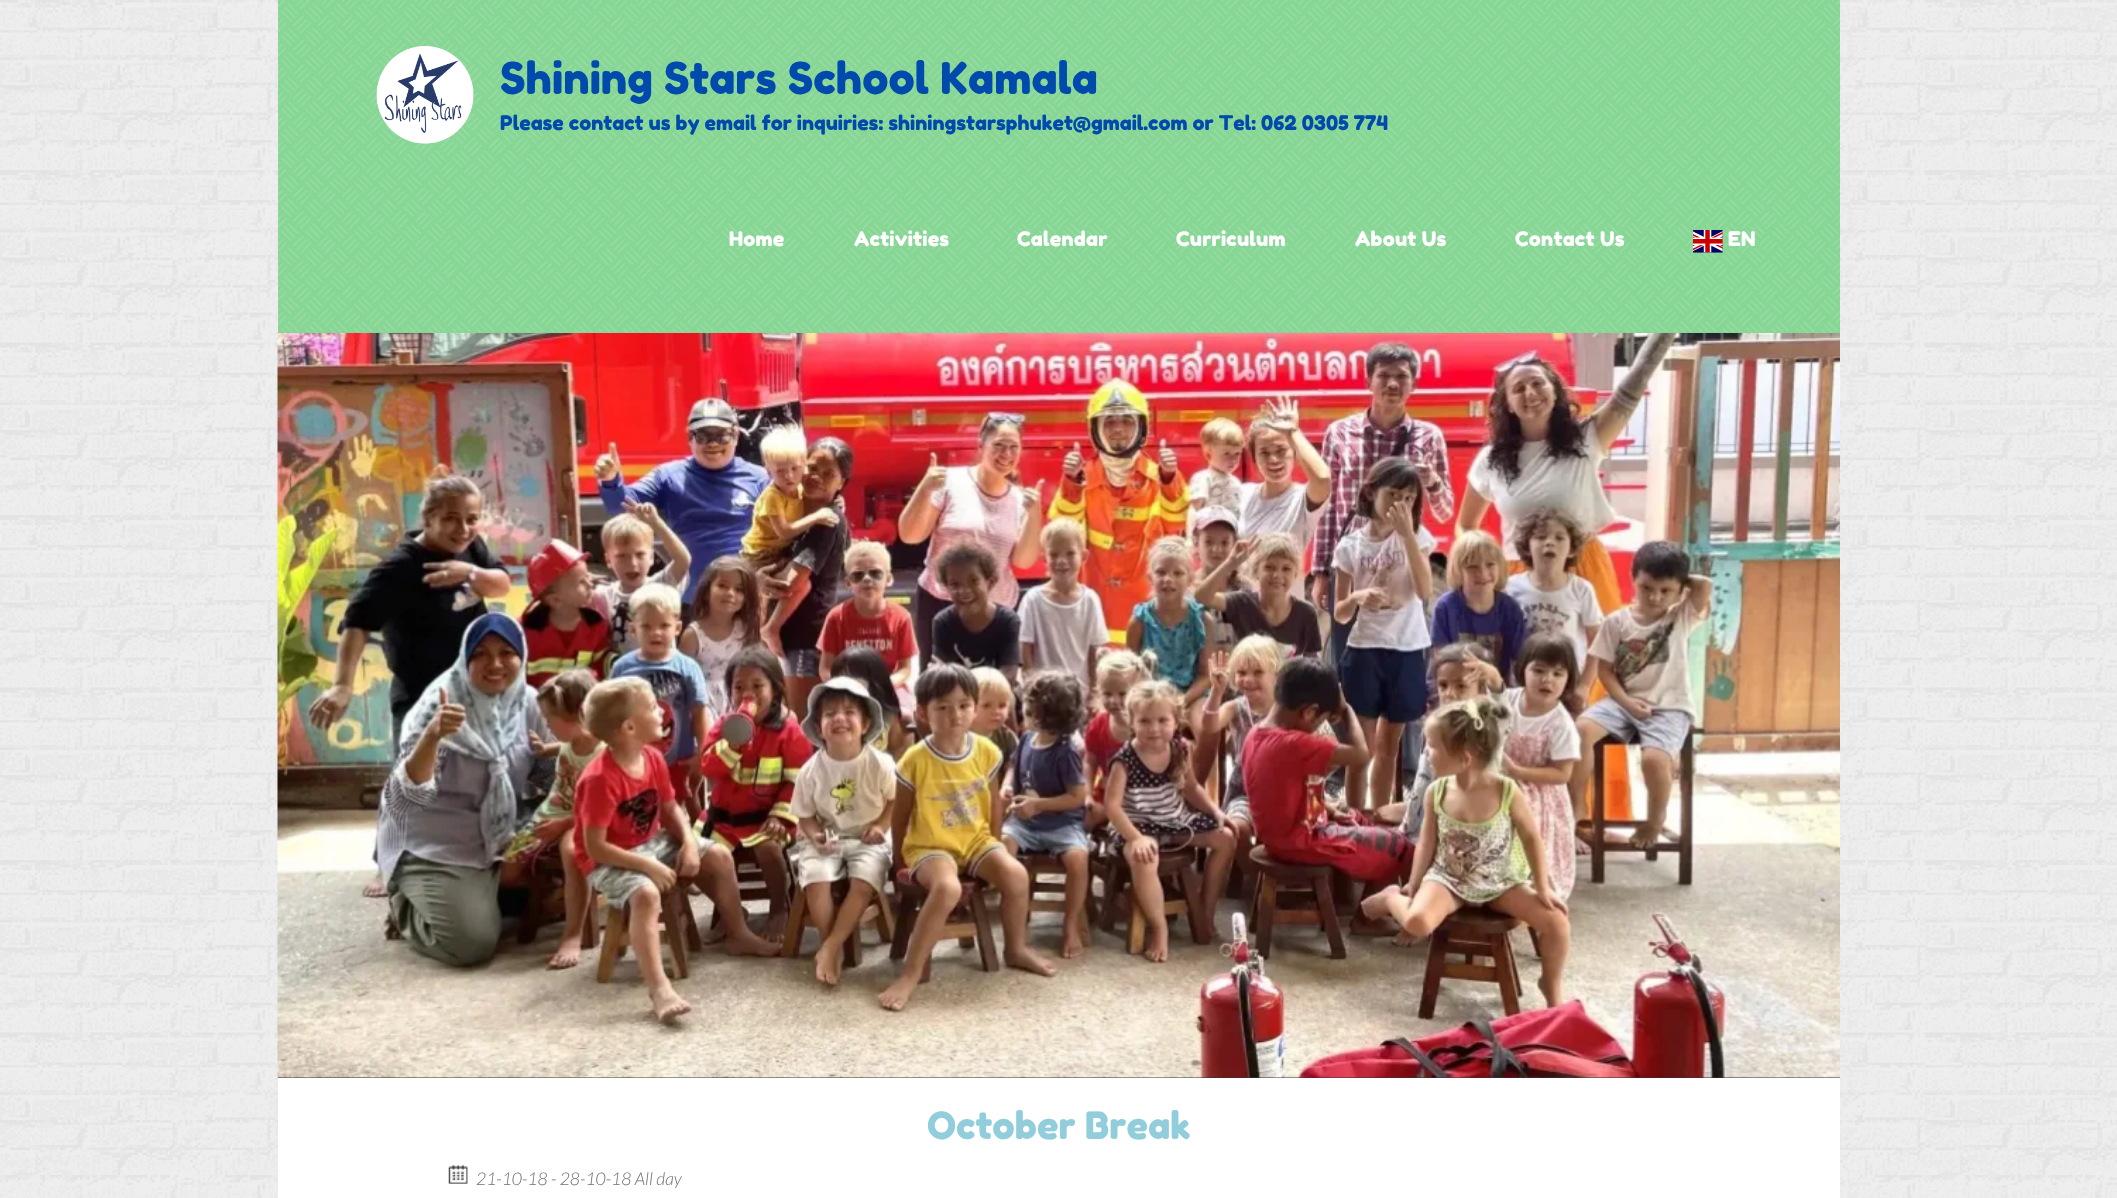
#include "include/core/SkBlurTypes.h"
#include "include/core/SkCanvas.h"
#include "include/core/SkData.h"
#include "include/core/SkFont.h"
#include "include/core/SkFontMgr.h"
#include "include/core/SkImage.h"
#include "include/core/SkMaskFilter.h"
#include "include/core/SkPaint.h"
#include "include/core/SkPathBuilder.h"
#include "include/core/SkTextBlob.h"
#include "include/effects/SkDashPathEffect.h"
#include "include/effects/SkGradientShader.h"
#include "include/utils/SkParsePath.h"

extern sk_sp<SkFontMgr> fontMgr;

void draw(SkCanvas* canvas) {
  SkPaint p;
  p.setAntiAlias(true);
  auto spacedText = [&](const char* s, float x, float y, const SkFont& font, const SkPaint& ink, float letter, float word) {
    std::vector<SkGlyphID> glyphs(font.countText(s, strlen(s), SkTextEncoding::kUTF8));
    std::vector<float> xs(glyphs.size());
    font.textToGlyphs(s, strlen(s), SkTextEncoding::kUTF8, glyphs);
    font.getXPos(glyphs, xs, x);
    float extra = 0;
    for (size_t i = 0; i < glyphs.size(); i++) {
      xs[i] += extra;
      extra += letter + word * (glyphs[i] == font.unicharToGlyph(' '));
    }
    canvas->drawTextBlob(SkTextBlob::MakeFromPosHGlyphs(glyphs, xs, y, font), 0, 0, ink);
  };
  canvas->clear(SK_ColorWHITE);
  canvas->drawImageRect(SkImages::DeferredFromEncodedData(SkData::MakeFromFileName("images/1.png")), SkRect::MakeLTRB(0, 0, 2117, 1198), SkSamplingOptions());
  p.setColor(SK_ColorWHITE);
  canvas->drawRect(SkRect::MakeLTRB(278, 1078, 1840, 1198), p);
  p.setColor(SkColorSetRGB(51, 51, 51));
  canvas->drawRect(SkRect::MakeLTRB(278, 1077, 1840, 1078), p);
  canvas->drawImageRect(SkImages::DeferredFromEncodedData(SkData::MakeFromFileName("images/5.png")), SkRect::MakeLTRB(277, 332, 1840, 1078), SkSamplingOptions());
  p.setColor(SkColorSetRGB(134, 214, 148));
  canvas->drawRect(SkRect::MakeLTRB(278, 0, 1840, 333), p);
  canvas->drawImageRect(SkImages::DeferredFromEncodedData(SkData::MakeFromFileName("images/2.png")), SkRect::MakeLTRB(278, 0, 1840, 333), SkSamplingOptions());
  canvas->drawImageRect(SkImages::DeferredFromEncodedData(SkData::MakeFromFileName("images/3.png")), SkRect::MakeLTRB(376, 46, 474, 144), SkSamplingOptions());
  canvas->drawImageRect(SkImages::DeferredFromEncodedData(SkData::MakeFromFileName("images/4.png")), SkRect::MakeLTRB(1693, 230, 1723, 253), SkSamplingOptions());
  canvas->drawImageRect(SkImages::DeferredFromEncodedData(SkData::MakeFromFileName("images/6.png")), SkRect::MakeLTRB(448, 1164, 468, 1184), SkSamplingOptions());
  SkFont font1(fontMgr->matchFamilyStyle("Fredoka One", SkFontStyle::Normal()), 43.75f);
  font1.setSubpixel(true);
  p.setColor(SkColorSetRGB(0, 74, 173));
  canvas->drawString("Shining Stars School Kamala", 500, 94, font1, p);
  SkFont font2(fontMgr->matchFamilyStyle("Fredoka One", SkFontStyle::Normal()), 20);
  font2.setSubpixel(true);
  canvas->drawString("Please contact us by email for inquiries: shiningstarsphuket@gmail.com or Tel: 062 0305 774", 500, 130, font2, p);
  p.setColor(SK_ColorWHITE);
  spacedText("Home", 729, 246, font2, p, 0.25f, 0);
  spacedText("Activities", 854, 246, font2, p, 0.25f, 0);
  spacedText("Calendar", 1017, 246, font2, p, 0.25f, 0);
  spacedText("Curriculum", 1176, 246, font2, p, 0.25f, 0);
  spacedText("About Us", 1355, 246, font2, p, 0.25f, 0);
  spacedText("Contact Us", 1515, 246, font2, p, 0.25f, 0);
  spacedText("EN", 1728, 246, font2, p, 0.25f, 0);
  SkFont font3(fontMgr->matchFamilyStyle("Fredoka One", SkFontStyle::Normal()), 37.5f);
  font3.setSubpixel(true);
  p.setColor(SkColorSetRGB(146, 205, 220));
  canvas->drawString("October Break", 927, 1139, font3, p);
  SkFont font4(fontMgr->matchFamilyStyle("Lato", SkFontStyle(300, SkFontStyle::kNormal_Width, SkFontStyle::kItalic_Slant)), 17.5f);
  font4.setSubpixel(true);
  p.setColor(SkColorSetRGB(120, 120, 120));
  canvas->drawString("21-10-18 - 28-10-18 All day", 476, 1185, font4, p);
}
